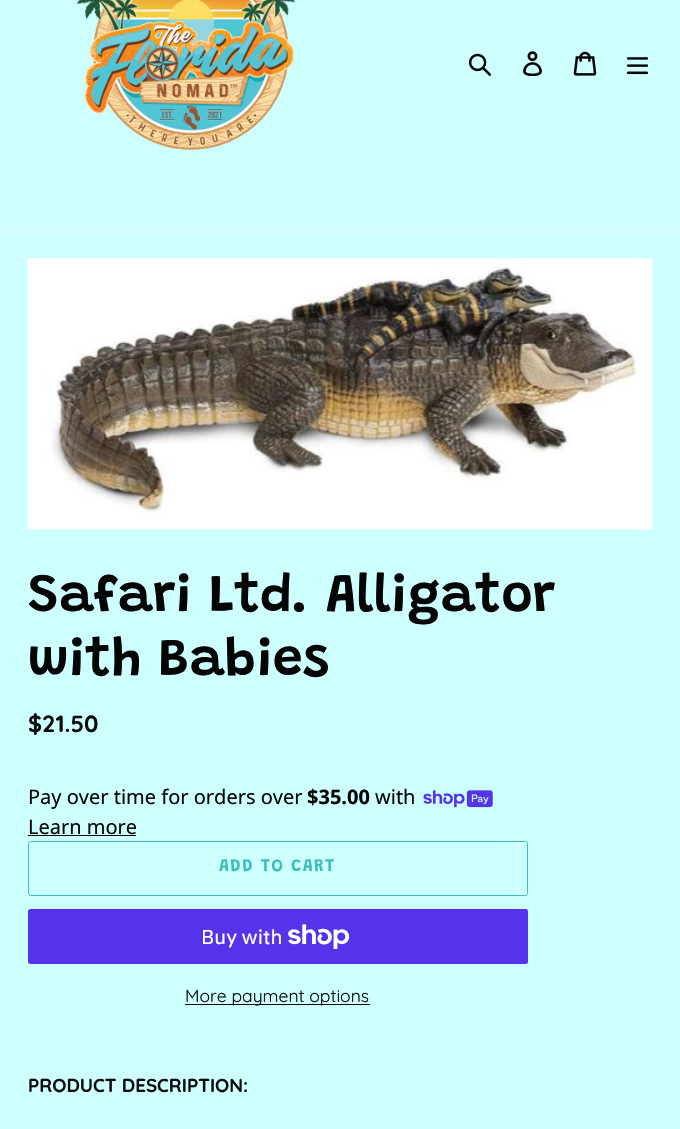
#include "include/core/SkBlurTypes.h"
#include "include/core/SkCanvas.h"
#include "include/core/SkData.h"
#include "include/core/SkFont.h"
#include "include/core/SkFontMgr.h"
#include "include/core/SkImage.h"
#include "include/core/SkMaskFilter.h"
#include "include/core/SkPaint.h"
#include "include/core/SkPathBuilder.h"
#include "include/core/SkTextBlob.h"
#include "include/effects/SkDashPathEffect.h"
#include "include/effects/SkGradientShader.h"
#include "include/utils/SkParsePath.h"

extern sk_sp<SkFontMgr> fontMgr;

void draw(SkCanvas* canvas) {
  SkPaint p;
  p.setAntiAlias(true);
  auto spacedText = [&](const char* s, float x, float y, const SkFont& font, const SkPaint& ink, float letter, float word) {
    std::vector<SkGlyphID> glyphs(font.countText(s, strlen(s), SkTextEncoding::kUTF8));
    std::vector<float> xs(glyphs.size());
    font.textToGlyphs(s, strlen(s), SkTextEncoding::kUTF8, glyphs);
    font.getXPos(glyphs, xs, x);
    float extra = 0;
    for (size_t i = 0; i < glyphs.size(); i++) {
      xs[i] += extra;
      extra += letter + word * (glyphs[i] == font.unicharToGlyph(' '));
    }
    canvas->drawTextBlob(SkTextBlob::MakeFromPosHGlyphs(glyphs, xs, y, font), 0, 0, ink);
  };
  canvas->clear(SkColorSetRGB(205, 255, 254));
  p.setColor(SkColorSetRGB(235, 235, 235));
  canvas->drawRect(SkRect::MakeLTRB(0, 230, 680, 231), p);
  canvas->drawImageRect(SkImages::DeferredFromEncodedData(SkData::MakeFromFileName("images/1.png")), SkRect::MakeLTRB(76, 0, 295, 150), SkSamplingOptions());
  canvas->drawImageRect(SkImages::DeferredFromEncodedData(SkData::MakeFromFileName("images/2.png")), SkRect::MakeLTRB(468, 53, 491, 76), SkSamplingOptions());
  canvas->drawImageRect(SkImages::DeferredFromEncodedData(SkData::MakeFromFileName("images/3.png")), SkRect::MakeLTRB(523, 51, 542, 76), SkSamplingOptions());
  canvas->drawImageRect(SkImages::DeferredFromEncodedData(SkData::MakeFromFileName("images/4.png")), SkRect::MakeLTRB(573, 51, 597, 76), SkSamplingOptions());
  canvas->drawImageRect(SkImages::DeferredFromEncodedData(SkData::MakeFromFileName("images/5.png")), SkRect::MakeLTRB(626, 57, 649, 75), SkSamplingOptions());
  canvas->drawImageRect(SkImages::DeferredFromEncodedData(SkData::MakeFromFileName("images/6.png")), SkRect::MakeLTRB(27, 258, 653, 530), SkSamplingOptions());
  canvas->drawImageRect(SkImages::DeferredFromEncodedData(SkData::MakeFromFileName("images/7.png")), SkRect::MakeLTRB(423, 790, 493, 808), SkSamplingOptions());
  p.setColor(SkColorSetRGB(5, 5, 5));
  canvas->drawRect(SkRect::MakeLTRB(28, 835, 136, 836), p);
  p.setStyle(SkPaint::kStroke_Style);
  p.setStrokeWidth(1);
  p.setColor(SkColorSetRGB(60, 190, 189));
  canvas->drawRoundRect(SkRect::MakeLTRB(28.5f, 841.5f, 527.5f, 895.5f), 2, 2, p);
  p.setStyle(SkPaint::kFill_Style);
  p.setColor(SkColorSetRGB(84, 51, 235));
  canvas->drawRoundRect(SkRect::MakeLTRB(28, 909, 528, 964), 2.5f, 2.5f, p);
  canvas->drawImageRect(SkImages::DeferredFromEncodedData(SkData::MakeFromFileName("images/8.png")), SkRect::MakeLTRB(288, 924, 350, 949), SkSamplingOptions());
  p.setColor(SkColorSetRGB(5, 5, 5));
  canvas->drawRect(SkRect::MakeLTRB(185, 1004, 370, 1005), p);
  SkFont font1(fontMgr->matchFamilyStyle("Grandstander", SkFontStyle(600, SkFontStyle::kNormal_Width, SkFontStyle::kUpright_Slant)), 53.75f);
  font1.setSubpixel(true);
  canvas->drawString("Safari Ltd. Alligator", 28, 611, font1, p);
  canvas->drawString("with Babies", 28, 675, font1, p);
  SkFont font2(fontMgr->matchFamilyStyle("Quicksand", SkFontStyle::Bold()), 23.5f);
  font2.setSubpixel(true);
  p.setColor(SkColorSetRGB(12, 12, 12));
  canvas->drawString("$21.50", 28, 732, font2, p);
  SkFont font3(fontMgr->matchFamilyStyle("Noto Sans", SkFontStyle::Normal()), 20);
  font3.setSubpixel(true);
  p.setColor(SkColorSetRGB(5, 5, 5));
  canvas->drawString("Pay over time for orders over", 28, 804, font3, p);
  SkFont font4(fontMgr->matchFamilyStyle("Noto Sans", SkFontStyle::Bold()), 20);
  font4.setSubpixel(true);
  canvas->drawString("$35.00", 307, 804, font4, p);
  canvas->drawString("with", 375, 804, font3, p);
  canvas->drawString("Learn more", 28, 834, font3, p);
  SkFont font5(fontMgr->matchFamilyStyle("Grandstander", SkFontStyle(600, SkFontStyle::kNormal_Width, SkFontStyle::kUpright_Slant)), 17.5f);
  font5.setSubpixel(true);
  p.setColor(SkColorSetRGB(60, 190, 189));
  spacedText("ADD TO CART", 219, 871, font5, p, 1.4f, 0);
  SkFont font6(fontMgr->matchFamilyStyle("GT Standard", SkFontStyle::Normal()), 20);
  font6.setSubpixel(true);
  p.setColor(SK_ColorWHITE);
  canvas->drawString("Buy with", 201, 944, font6, p);
  SkFont font7(fontMgr->matchFamilyStyle("Quicksand", SkFontStyle::Normal()), 17.5f);
  font7.setSubpixel(true);
  p.setColor(SkColorSetRGB(5, 5, 5));
  canvas->drawString("More payment options", 185, 1002, font7, p);
  SkFont font8(fontMgr->matchFamilyStyle("Quicksand", SkFontStyle::Bold()), 18.75f);
  font8.setSubpixel(true);
  p.setColor(SkColorSetRGB(12, 12, 12));
  canvas->drawString("PRODUCT DESCRIPTION:", 28, 1092, font8, p);
}
